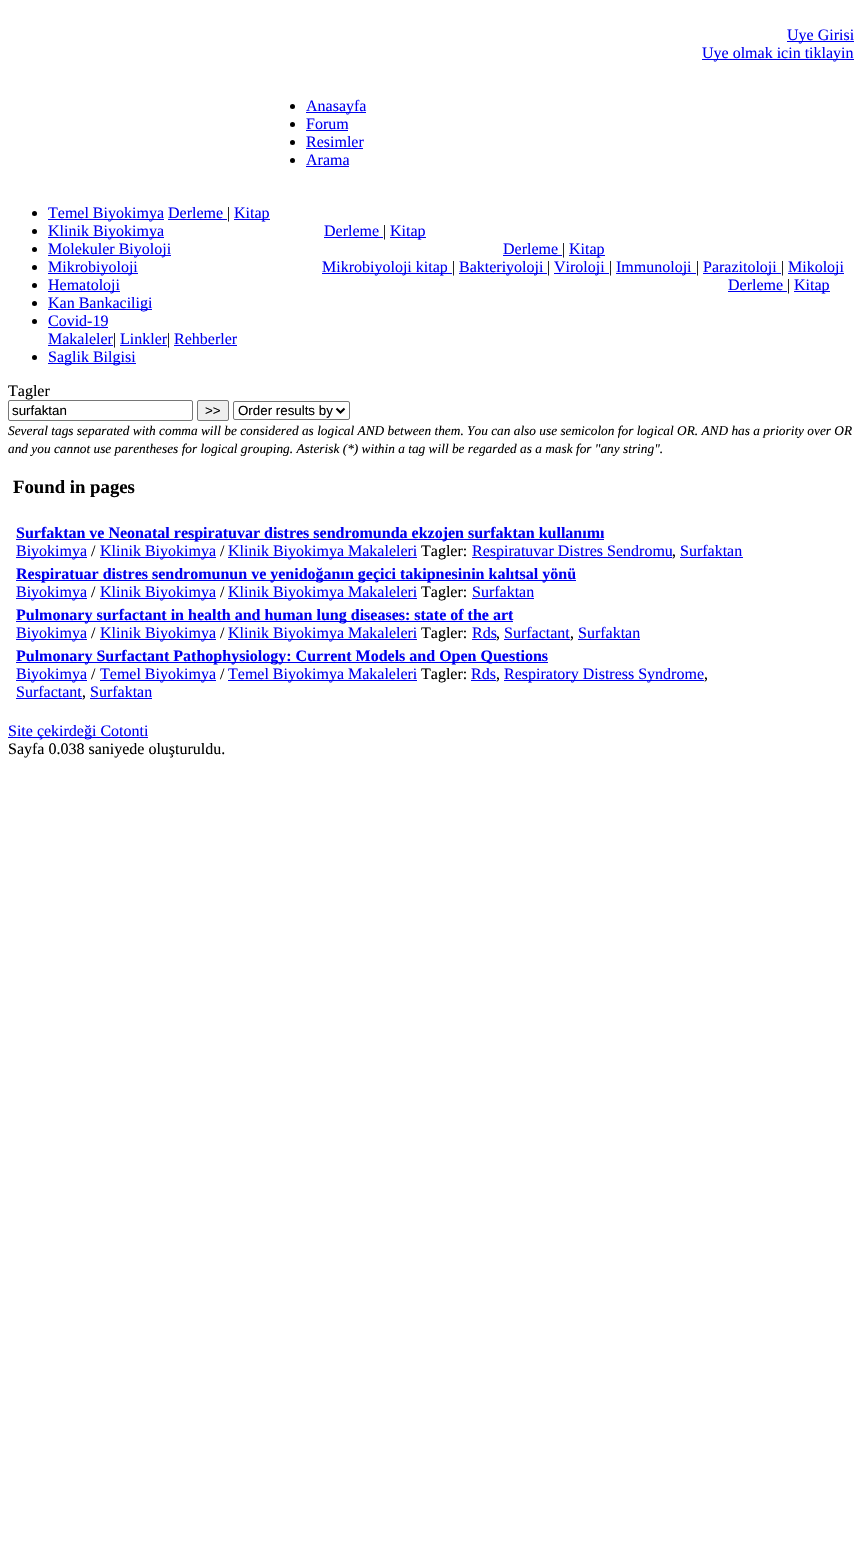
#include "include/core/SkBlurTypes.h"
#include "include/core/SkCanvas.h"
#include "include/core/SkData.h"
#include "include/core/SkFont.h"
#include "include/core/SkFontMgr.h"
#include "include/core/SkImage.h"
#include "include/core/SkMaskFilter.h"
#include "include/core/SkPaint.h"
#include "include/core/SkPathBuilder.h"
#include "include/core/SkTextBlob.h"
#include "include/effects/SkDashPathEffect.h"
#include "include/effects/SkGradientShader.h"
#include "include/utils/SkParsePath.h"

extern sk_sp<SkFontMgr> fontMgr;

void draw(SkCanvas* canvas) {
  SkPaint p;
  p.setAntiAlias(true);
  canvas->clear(SK_ColorWHITE);
  p.setColor(SkColorSetRGB(0, 0, 238));
  canvas->drawRect(SkRect::MakeLTRB(787, 41, 854, 42), p);
  canvas->drawRect(SkRect::MakeLTRB(702, 59, 854, 60), p);
  p.setColor(SK_ColorBLACK);
  canvas->drawCircle(292.5f, 106.5f, 2.5f, p);
  p.setColor(SkColorSetRGB(0, 0, 238));
  canvas->drawRect(SkRect::MakeLTRB(306, 112, 366, 113), p);
  p.setColor(SK_ColorBLACK);
  canvas->drawCircle(292.5f, 124.5f, 2.5f, p);
  p.setColor(SkColorSetRGB(0, 0, 238));
  canvas->drawRect(SkRect::MakeLTRB(306, 130, 348, 131), p);
  p.setColor(SK_ColorBLACK);
  canvas->drawCircle(292.5f, 142.5f, 2.5f, p);
  p.setColor(SkColorSetRGB(0, 0, 238));
  canvas->drawRect(SkRect::MakeLTRB(306, 148, 363, 149), p);
  p.setColor(SK_ColorBLACK);
  canvas->drawCircle(292.5f, 160.5f, 2.5f, p);
  p.setColor(SkColorSetRGB(0, 0, 238));
  canvas->drawRect(SkRect::MakeLTRB(306, 166, 349, 167), p);
  p.setColor(SK_ColorBLACK);
  canvas->drawCircle(34.5f, 213.5f, 2.5f, p);
  p.setColor(SkColorSetRGB(0, 0, 238));
  canvas->drawRect(SkRect::MakeLTRB(48, 219, 164, 220), p);
  canvas->drawRect(SkRect::MakeLTRB(168, 219, 227, 220), p);
  canvas->drawRect(SkRect::MakeLTRB(234, 219, 270, 220), p);
  p.setColor(SK_ColorBLACK);
  canvas->drawCircle(34.5f, 231.5f, 2.5f, p);
  p.setColor(SkColorSetRGB(0, 0, 238));
  canvas->drawRect(SkRect::MakeLTRB(48, 237, 164, 238), p);
  canvas->drawRect(SkRect::MakeLTRB(324, 237, 383, 238), p);
  canvas->drawRect(SkRect::MakeLTRB(390, 237, 426, 238), p);
  p.setColor(SK_ColorBLACK);
  canvas->drawCircle(34.5f, 249.5f, 2.5f, p);
  p.setColor(SkColorSetRGB(0, 0, 238));
  canvas->drawRect(SkRect::MakeLTRB(48, 255, 171, 256), p);
  canvas->drawRect(SkRect::MakeLTRB(503, 255, 562, 256), p);
  canvas->drawRect(SkRect::MakeLTRB(569, 255, 605, 256), p);
  p.setColor(SK_ColorBLACK);
  canvas->drawCircle(34.5f, 267.5f, 2.5f, p);
  p.setColor(SkColorSetRGB(0, 0, 238));
  canvas->drawRect(SkRect::MakeLTRB(48, 273, 138, 274), p);
  canvas->drawRect(SkRect::MakeLTRB(322, 273, 452, 274), p);
  canvas->drawRect(SkRect::MakeLTRB(459, 273, 547, 274), p);
  canvas->drawRect(SkRect::MakeLTRB(554, 273, 609, 274), p);
  canvas->drawRect(SkRect::MakeLTRB(616, 273, 696, 274), p);
  canvas->drawRect(SkRect::MakeLTRB(703, 273, 781, 274), p);
  canvas->drawRect(SkRect::MakeLTRB(788, 273, 844, 274), p);
  p.setColor(SK_ColorBLACK);
  canvas->drawCircle(34.5f, 285.5f, 2.5f, p);
  p.setColor(SkColorSetRGB(0, 0, 238));
  canvas->drawRect(SkRect::MakeLTRB(48, 291, 120, 292), p);
  canvas->drawRect(SkRect::MakeLTRB(728, 291, 787, 292), p);
  canvas->drawRect(SkRect::MakeLTRB(794, 291, 830, 292), p);
  p.setColor(SK_ColorBLACK);
  canvas->drawCircle(34.5f, 303.5f, 2.5f, p);
  p.setColor(SkColorSetRGB(0, 0, 238));
  canvas->drawRect(SkRect::MakeLTRB(48, 309, 152, 310), p);
  p.setColor(SK_ColorBLACK);
  canvas->drawCircle(34.5f, 321.5f, 2.5f, p);
  p.setColor(SkColorSetRGB(0, 0, 238));
  canvas->drawRect(SkRect::MakeLTRB(48, 327, 108, 328), p);
  canvas->drawRect(SkRect::MakeLTRB(48, 345, 113, 346), p);
  canvas->drawRect(SkRect::MakeLTRB(120, 345, 167, 346), p);
  canvas->drawRect(SkRect::MakeLTRB(174, 345, 237, 346), p);
  p.setColor(SK_ColorBLACK);
  canvas->drawCircle(34.5f, 357.5f, 2.5f, p);
  p.setColor(SkColorSetRGB(0, 0, 238));
  canvas->drawRect(SkRect::MakeLTRB(48, 363, 136, 364), p);
  p.setStyle(SkPaint::kStroke_Style);
  p.setStrokeWidth(1);
  p.setColor(SkColorSetRGB(118, 118, 118));
  canvas->drawRoundRect(SkRect::MakeLTRB(8.5f, 400.5f, 192.5f, 420.5f), 1.5f, 1.5f, p);
  p.setStyle(SkPaint::kFill_Style);
  p.setColor(SkColorSetRGB(239, 239, 239));
  canvas->drawRoundRect(SkRect::MakeLTRB(197.5f, 400.5f, 228.5f, 420.5f), 1.5f, 1.5f, p);
  p.setStyle(SkPaint::kStroke_Style);
  p.setColor(SkColorSetRGB(118, 118, 118));
  canvas->drawRoundRect(SkRect::MakeLTRB(197.5f, 400.5f, 228.5f, 420.5f), 1.5f, 1.5f, p);
  canvas->drawRoundRect(SkRect::MakeLTRB(233.5f, 401.5f, 349.5f, 419.5f), 1.5f, 1.5f, p);
  p.setStrokeWidth(2);
  p.setColor(SK_ColorBLACK);
  canvas->drawPath(SkPathBuilder().moveTo(336.5f, 408.5f).lineTo(340.5f, 412.5f).lineTo(344.5f, 408.5f).detach(), p);
  p.setStyle(SkPaint::kFill_Style);
  p.setColor(SkColorSetRGB(0, 0, 238));
  canvas->drawRect(SkRect::MakeLTRB(16, 539, 604, 540), p);
  canvas->drawRect(SkRect::MakeLTRB(16, 557, 87, 558), p);
  canvas->drawRect(SkRect::MakeLTRB(100, 557, 216, 558), p);
  canvas->drawRect(SkRect::MakeLTRB(228, 557, 417, 558), p);
  canvas->drawRect(SkRect::MakeLTRB(472, 557, 672, 558), p);
  canvas->drawRect(SkRect::MakeLTRB(680, 557, 743, 558), p);
  canvas->drawRect(SkRect::MakeLTRB(16, 580, 576, 581), p);
  canvas->drawRect(SkRect::MakeLTRB(16, 598, 87, 599), p);
  canvas->drawRect(SkRect::MakeLTRB(100, 598, 216, 599), p);
  canvas->drawRect(SkRect::MakeLTRB(228, 598, 417, 599), p);
  canvas->drawRect(SkRect::MakeLTRB(472, 598, 534, 599), p);
  canvas->drawRect(SkRect::MakeLTRB(16, 621, 513, 622), p);
  canvas->drawRect(SkRect::MakeLTRB(16, 639, 87, 640), p);
  canvas->drawRect(SkRect::MakeLTRB(100, 639, 216, 640), p);
  canvas->drawRect(SkRect::MakeLTRB(228, 639, 417, 640), p);
  canvas->drawRect(SkRect::MakeLTRB(472, 639, 496, 640), p);
  canvas->drawRect(SkRect::MakeLTRB(504, 639, 570, 640), p);
  canvas->drawRect(SkRect::MakeLTRB(578, 639, 640, 640), p);
  canvas->drawRect(SkRect::MakeLTRB(16, 662, 548, 663), p);
  canvas->drawRect(SkRect::MakeLTRB(16, 680, 87, 681), p);
  canvas->drawRect(SkRect::MakeLTRB(100, 680, 216, 681), p);
  canvas->drawRect(SkRect::MakeLTRB(228, 680, 417, 681), p);
  canvas->drawRect(SkRect::MakeLTRB(471, 680, 496, 681), p);
  canvas->drawRect(SkRect::MakeLTRB(504, 680, 704, 681), p);
  canvas->drawRect(SkRect::MakeLTRB(16, 698, 82, 699), p);
  canvas->drawRect(SkRect::MakeLTRB(90, 698, 152, 699), p);
  canvas->drawRect(SkRect::MakeLTRB(8, 737, 148, 738), p);
  SkFont font1(fontMgr->matchFamilyStyle("Liberation Serif", SkFontStyle::Normal()), 16);
  font1.setSubpixel(true);
  canvas->drawString("Uye Girisi", 787, 40, font1, p);
  canvas->drawString("Uye olmak icin tiklayin", 702, 58, font1, p);
  canvas->drawString("Anasayfa", 306, 111, font1, p);
  canvas->drawString("Forum", 306, 129, font1, p);
  canvas->drawString("Resimler", 306, 147, font1, p);
  canvas->drawString("Arama", 306, 165, font1, p);
  canvas->drawString("Temel Biyokimya Derleme", 48, 218, font1, p);
  p.setColor(SK_ColorBLACK);
  canvas->drawString("|", 227, 218, font1, p);
  p.setColor(SkColorSetRGB(0, 0, 238));
  canvas->drawString("Kitap", 234, 218, font1, p);
  canvas->drawString("Klinik Biyokimya", 48, 236, font1, p);
  canvas->drawString("Derleme", 324, 236, font1, p);
  p.setColor(SK_ColorBLACK);
  canvas->drawString("|", 383, 236, font1, p);
  p.setColor(SkColorSetRGB(0, 0, 238));
  canvas->drawString("Kitap", 390, 236, font1, p);
  canvas->drawString("Molekuler Biyoloji", 48, 254, font1, p);
  canvas->drawString("Derleme", 503, 254, font1, p);
  p.setColor(SK_ColorBLACK);
  canvas->drawString("|", 562, 254, font1, p);
  p.setColor(SkColorSetRGB(0, 0, 238));
  canvas->drawString("Kitap", 569, 254, font1, p);
  canvas->drawString("Mikrobiyoloji", 48, 272, font1, p);
  canvas->drawString("Mikrobiyoloji kitap", 322, 272, font1, p);
  p.setColor(SK_ColorBLACK);
  canvas->drawString("|", 452, 272, font1, p);
  p.setColor(SkColorSetRGB(0, 0, 238));
  canvas->drawString("Bakteriyoloji", 459, 272, font1, p);
  p.setColor(SK_ColorBLACK);
  canvas->drawString("|", 547, 272, font1, p);
  p.setColor(SkColorSetRGB(0, 0, 238));
  canvas->drawString("Viroloji", 554, 272, font1, p);
  p.setColor(SK_ColorBLACK);
  canvas->drawString("|", 609, 272, font1, p);
  p.setColor(SkColorSetRGB(0, 0, 238));
  canvas->drawString("Immunoloji", 616, 272, font1, p);
  p.setColor(SK_ColorBLACK);
  canvas->drawString("|", 696, 272, font1, p);
  p.setColor(SkColorSetRGB(0, 0, 238));
  canvas->drawString("Parazitoloji", 703, 272, font1, p);
  p.setColor(SK_ColorBLACK);
  canvas->drawString("|", 781, 272, font1, p);
  p.setColor(SkColorSetRGB(0, 0, 238));
  canvas->drawString("Mikoloji", 788, 272, font1, p);
  canvas->drawString("Hematoloji", 48, 290, font1, p);
  canvas->drawString("Derleme", 728, 290, font1, p);
  p.setColor(SK_ColorBLACK);
  canvas->drawString("|", 787, 290, font1, p);
  p.setColor(SkColorSetRGB(0, 0, 238));
  canvas->drawString("Kitap", 794, 290, font1, p);
  canvas->drawString("Kan Bankaciligi", 48, 308, font1, p);
  canvas->drawString("Covid-19", 48, 326, font1, p);
  canvas->drawString("Makaleler", 48, 344, font1, p);
  p.setColor(SK_ColorBLACK);
  canvas->drawString("|", 113, 344, font1, p);
  p.setColor(SkColorSetRGB(0, 0, 238));
  canvas->drawString("Linkler", 120, 344, font1, p);
  p.setColor(SK_ColorBLACK);
  canvas->drawString("|", 167, 344, font1, p);
  p.setColor(SkColorSetRGB(0, 0, 238));
  canvas->drawString("Rehberler", 174, 344, font1, p);
  canvas->drawString("Saglik Bilgisi", 48, 362, font1, p);
  p.setColor(SK_ColorBLACK);
  canvas->drawString("Tagler", 8, 396, font1, p);
  SkFont font2(fontMgr->matchFamilyStyle("Liberation Sans", SkFontStyle::Normal()), 13.33f);
  font2.setSubpixel(true);
  canvas->drawString("surfaktan", 12, 415, font2, p);
  canvas->drawString(">>", 205, 415, font2, p);
  canvas->drawString("Order results by", 238, 415, font2, p);
  SkFont font3(fontMgr->matchFamilyStyle("Liberation Serif", SkFontStyle::Italic()), 13.33f);
  font3.setSubpixel(true);
  canvas->drawString("Several tags separated with comma will be considered as logical AND between them. You can also use semicolon for logical OR. AND has a priority over OR", 8, 435, font3, p);
  canvas->drawString("and you cannot use parentheses for logical grouping. Asterisk (*) within a tag will be regarded as a mask for \"any string\".", 8, 453, font3, p);
  SkFont font4(fontMgr->matchFamilyStyle("Liberation Serif", SkFontStyle::Bold()), 18.75f);
  font4.setSubpixel(true);
  canvas->drawString("Found in pages", 13, 493, font4, p);
  SkFont font5(fontMgr->matchFamilyStyle("Liberation Serif", SkFontStyle::Bold()), 16);
  font5.setSubpixel(true);
  p.setColor(SkColorSetRGB(0, 0, 238));
  canvas->drawString("Surfaktan ve Neonatal respiratuvar distres sendromunda ekzojen surfaktan kullanımı", 16, 538, font5, p);
  canvas->drawString("Biyokimya", 16, 556, font1, p);
  p.setColor(SK_ColorBLACK);
  canvas->drawString("/", 91, 556, font1, p);
  p.setColor(SkColorSetRGB(0, 0, 238));
  canvas->drawString("Klinik Biyokimya", 100, 556, font1, p);
  p.setColor(SK_ColorBLACK);
  canvas->drawString("/", 220, 556, font1, p);
  p.setColor(SkColorSetRGB(0, 0, 238));
  canvas->drawString("Klinik Biyokimya Makaleleri", 228, 556, font1, p);
  p.setColor(SK_ColorBLACK);
  canvas->drawString("Tagler:", 421, 556, font1, p);
  p.setColor(SkColorSetRGB(0, 0, 238));
  canvas->drawString("Respiratuvar Distres Sendromu", 472, 556, font1, p);
  p.setColor(SK_ColorBLACK);
  canvas->drawString(",", 672, 556, font1, p);
  p.setColor(SkColorSetRGB(0, 0, 238));
  canvas->drawString("Surfaktan", 680, 556, font1, p);
  canvas->drawString("Respiratuar distres sendromunun ve yenidoğanın geçici takipnesinin kalıtsal yönü", 16, 579, font5, p);
  canvas->drawString("Biyokimya", 16, 597, font1, p);
  p.setColor(SK_ColorBLACK);
  canvas->drawString("/", 91, 597, font1, p);
  p.setColor(SkColorSetRGB(0, 0, 238));
  canvas->drawString("Klinik Biyokimya", 100, 597, font1, p);
  p.setColor(SK_ColorBLACK);
  canvas->drawString("/", 220, 597, font1, p);
  p.setColor(SkColorSetRGB(0, 0, 238));
  canvas->drawString("Klinik Biyokimya Makaleleri", 228, 597, font1, p);
  p.setColor(SK_ColorBLACK);
  canvas->drawString("Tagler:", 421, 597, font1, p);
  p.setColor(SkColorSetRGB(0, 0, 238));
  canvas->drawString("Surfaktan", 472, 597, font1, p);
  canvas->drawString("Pulmonary surfactant in health and human lung diseases: state of the art", 16, 620, font5, p);
  canvas->drawString("Biyokimya", 16, 638, font1, p);
  p.setColor(SK_ColorBLACK);
  canvas->drawString("/", 91, 638, font1, p);
  p.setColor(SkColorSetRGB(0, 0, 238));
  canvas->drawString("Klinik Biyokimya", 100, 638, font1, p);
  p.setColor(SK_ColorBLACK);
  canvas->drawString("/", 220, 638, font1, p);
  p.setColor(SkColorSetRGB(0, 0, 238));
  canvas->drawString("Klinik Biyokimya Makaleleri", 228, 638, font1, p);
  p.setColor(SK_ColorBLACK);
  canvas->drawString("Tagler:", 421, 638, font1, p);
  p.setColor(SkColorSetRGB(0, 0, 238));
  canvas->drawString("Rds", 472, 638, font1, p);
  p.setColor(SK_ColorBLACK);
  canvas->drawString(",", 496, 638, font1, p);
  p.setColor(SkColorSetRGB(0, 0, 238));
  canvas->drawString("Surfactant", 504, 638, font1, p);
  p.setColor(SK_ColorBLACK);
  canvas->drawString(",", 570, 638, font1, p);
  p.setColor(SkColorSetRGB(0, 0, 238));
  canvas->drawString("Surfaktan", 578, 638, font1, p);
  canvas->drawString("Pulmonary Surfactant Pathophysiology: Current Models and Open Questions", 16, 661, font5, p);
  canvas->drawString("Biyokimya", 16, 679, font1, p);
  p.setColor(SK_ColorBLACK);
  canvas->drawString("/", 91, 679, font1, p);
  p.setColor(SkColorSetRGB(0, 0, 238));
  canvas->drawString("Temel Biyokimya", 100, 679, font1, p);
  p.setColor(SK_ColorBLACK);
  canvas->drawString("/", 220, 679, font1, p);
  p.setColor(SkColorSetRGB(0, 0, 238));
  canvas->drawString("Temel Biyokimya Makaleleri", 228, 679, font1, p);
  p.setColor(SK_ColorBLACK);
  canvas->drawString("Tagler:", 421, 679, font1, p);
  p.setColor(SkColorSetRGB(0, 0, 238));
  canvas->drawString("Rds", 471, 679, font1, p);
  p.setColor(SK_ColorBLACK);
  canvas->drawString(",", 496, 679, font1, p);
  p.setColor(SkColorSetRGB(0, 0, 238));
  canvas->drawString("Respiratory Distress Syndrome", 504, 679, font1, p);
  p.setColor(SK_ColorBLACK);
  canvas->drawString(",", 704, 679, font1, p);
  p.setColor(SkColorSetRGB(0, 0, 238));
  canvas->drawString("Surfactant", 16, 697, font1, p);
  p.setColor(SK_ColorBLACK);
  canvas->drawString(",", 82, 697, font1, p);
  p.setColor(SkColorSetRGB(0, 0, 238));
  canvas->drawString("Surfaktan", 90, 697, font1, p);
  canvas->drawString("Site çekirdeği Cotonti", 8, 736, font1, p);
  p.setColor(SK_ColorBLACK);
  canvas->drawString("Sayfa 0.038 saniyede oluşturuldu.", 8, 754, font1, p);
}
